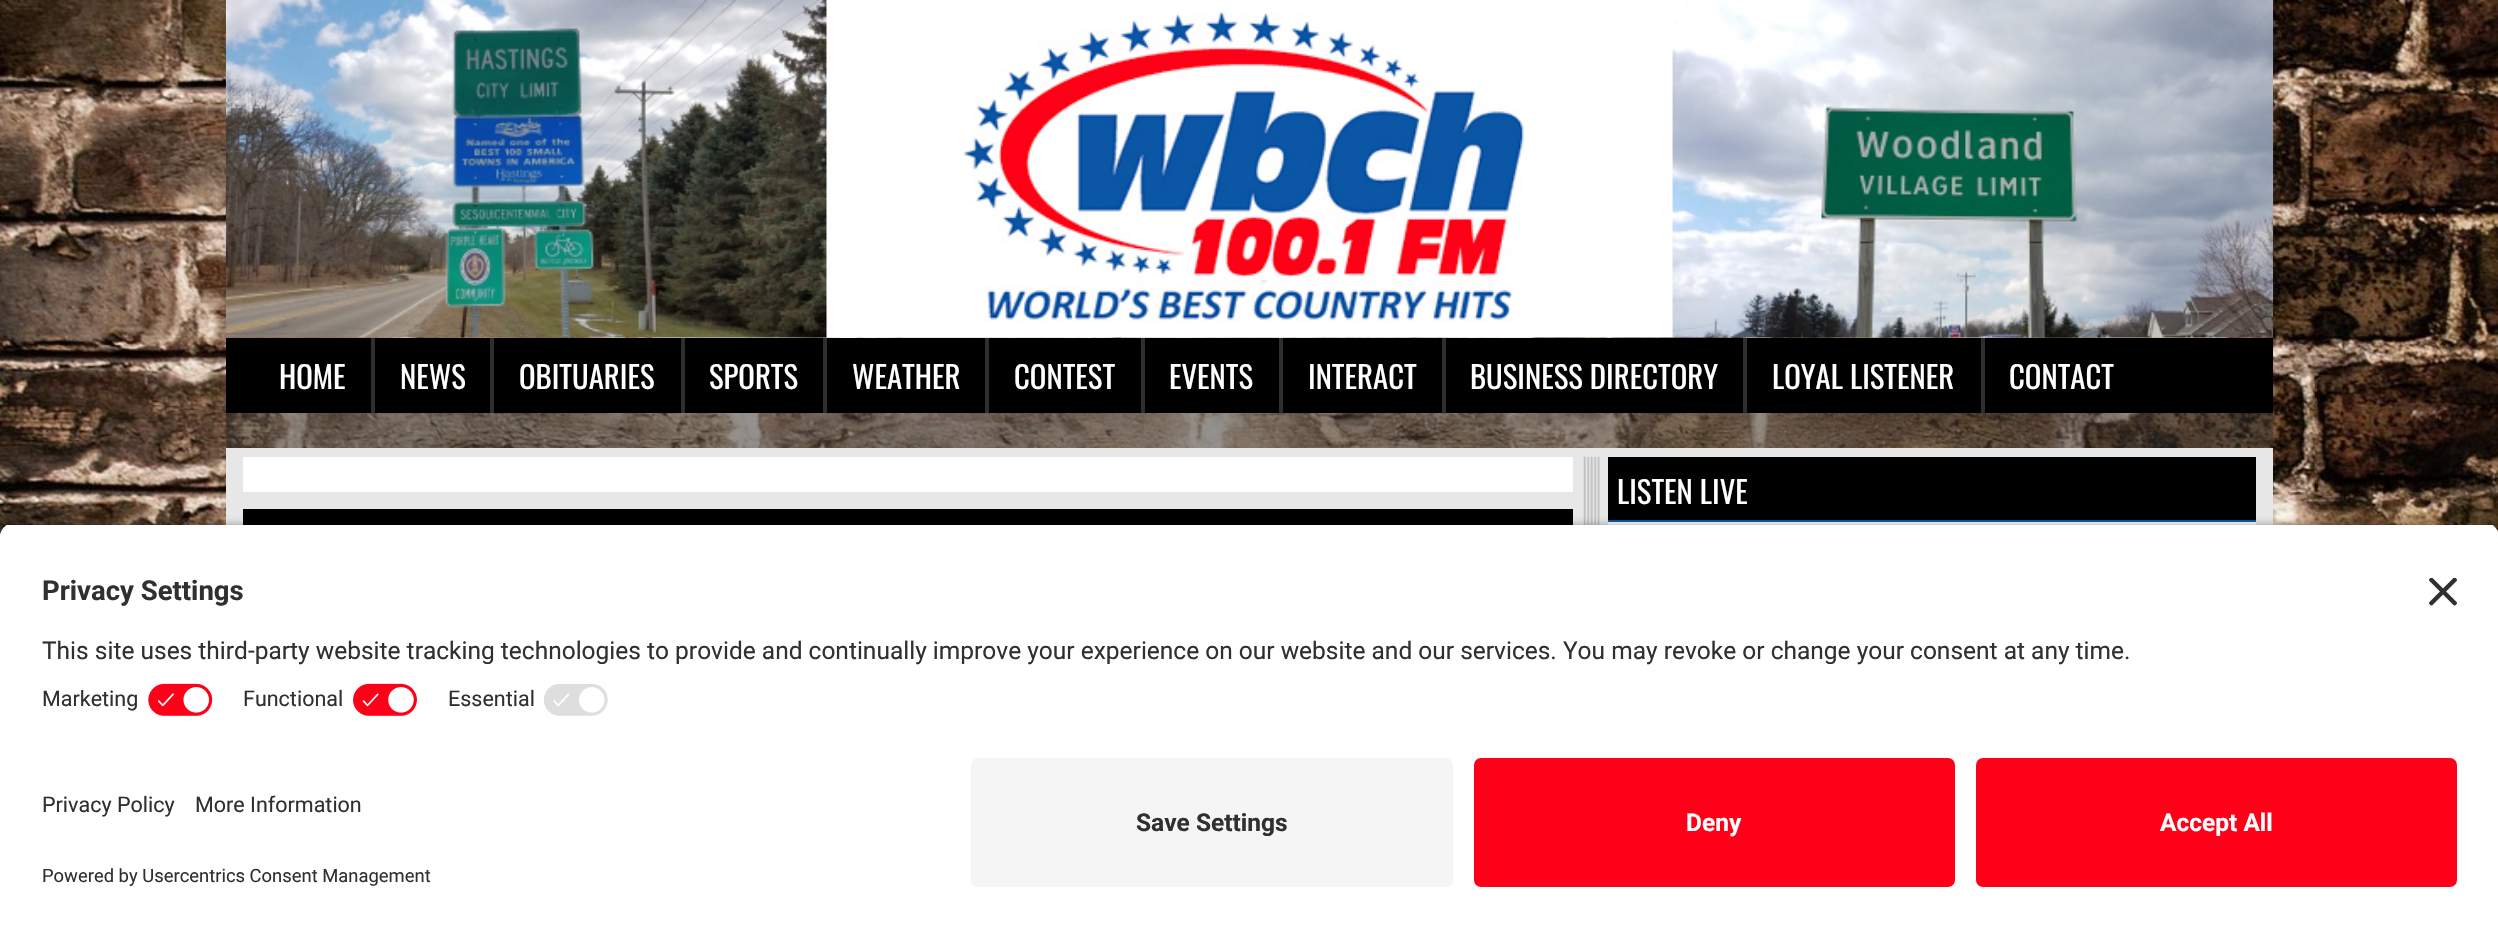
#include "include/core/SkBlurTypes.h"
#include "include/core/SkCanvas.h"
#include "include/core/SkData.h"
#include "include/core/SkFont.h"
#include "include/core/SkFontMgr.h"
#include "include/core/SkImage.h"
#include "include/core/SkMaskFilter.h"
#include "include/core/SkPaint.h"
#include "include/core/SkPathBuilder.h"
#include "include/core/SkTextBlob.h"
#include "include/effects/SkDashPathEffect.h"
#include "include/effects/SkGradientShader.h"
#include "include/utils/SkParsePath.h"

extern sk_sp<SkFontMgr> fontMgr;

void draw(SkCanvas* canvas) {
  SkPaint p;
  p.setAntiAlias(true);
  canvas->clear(SK_ColorWHITE);
  canvas->drawImageRect(SkImages::DeferredFromEncodedData(SkData::MakeFromFileName("images/1.png")), SkRect::MakeLTRB(0, 0, 2498, 537), SkSamplingOptions());
  canvas->drawImageRect(SkImages::DeferredFromEncodedData(SkData::MakeFromFileName("images/2.png")), SkRect::MakeLTRB(225, 0, 2274, 338), SkSamplingOptions());
  p.setColor(SK_ColorBLACK);
  canvas->drawRect(SkRect::MakeLTRB(226, 338, 2273, 413), p);
  p.setColor(SkColorSetRGB(46, 46, 46));
  canvas->drawRect(SkRect::MakeLTRB(371, 338, 375, 413), p);
  canvas->drawRect(SkRect::MakeLTRB(490, 338, 494, 413), p);
  canvas->drawRect(SkRect::MakeLTRB(681, 338, 685, 413), p);
  canvas->drawRect(SkRect::MakeLTRB(823, 338, 827, 413), p);
  canvas->drawRect(SkRect::MakeLTRB(985, 338, 989, 413), p);
  canvas->drawRect(SkRect::MakeLTRB(1141, 338, 1145, 413), p);
  canvas->drawRect(SkRect::MakeLTRB(1279, 338, 1283, 413), p);
  canvas->drawRect(SkRect::MakeLTRB(1442, 338, 1446, 413), p);
  canvas->drawRect(SkRect::MakeLTRB(1743, 338, 1747, 413), p);
  canvas->drawRect(SkRect::MakeLTRB(1981, 338, 1985, 413), p);
  p.setColor(SkColorSetARGB(128, 43, 43, 43));
  canvas->drawRect(SkRect::MakeLTRB(226, 413, 2273, 448), p);
  p.setColor(SkColorSetRGB(231, 231, 231));
  canvas->drawRect(SkRect::MakeLTRB(226, 448, 2273, 525), p);
  p.setColor(SK_ColorWHITE);
  canvas->drawRect(SkRect::MakeLTRB(243, 457, 1573, 492), p);
  p.setColor(SK_ColorBLACK);
  canvas->drawRect(SkRect::MakeLTRB(243, 509, 1573, 525), p);
  canvas->drawImageRect(SkImages::DeferredFromEncodedData(SkData::MakeFromFileName("images/3.png")), SkRect::MakeLTRB(1583, 456, 1600, 525), SkSamplingOptions());
  canvas->drawRect(SkRect::MakeLTRB(1608, 457, 2256, 520), p);
  p.setColor(SkColorSetRGB(10, 86, 164));
  canvas->drawRect(SkRect::MakeLTRB(1608, 520, 2256, 522), p);
  p.setColor(SK_ColorWHITE);
  canvas->drawRect(SkRect::MakeLTRB(1608, 522, 2256, 525), p);
  p.setColor(SkColorSetARGB(204, 0, 0, 0));
  p.setMaskFilter(SkMaskFilter::MakeBlur(kNormal_SkBlurStyle, 6));
  canvas->drawRoundRect(SkRect::MakeLTRB(0, 529, 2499, 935), 14, 14, p);
  p.setMaskFilter(nullptr);
  canvas->save();
  canvas->clipPath(SkPathBuilder().moveTo(14, 523).lineTo(2485, 523).cubicTo(2492.5f, 523, 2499, 529.5f, 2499, 537).lineTo(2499, 744).lineTo(0, 744).lineTo(0, 537).cubicTo(0, 529.5f, 6.5f, 523, 14, 523).close().detach(), true);
  p.setColor(SK_ColorWHITE);
  canvas->drawRect(SkRect::MakeLTRB(0, 525, 2498, 744), p);
  canvas->drawRect(SkRect::MakeLTRB(0, 525, 2498, 674), p);
  canvas->restore();
  canvas->drawImageRect(SkImages::DeferredFromEncodedData(SkData::MakeFromFileName("images/4.png")), SkRect::MakeLTRB(2429, 578, 2457, 606), SkSamplingOptions());
  canvas->drawImageRect(SkImages::DeferredFromEncodedData(SkData::MakeFromFileName("images/5.png")), SkRect::MakeLTRB(148, 683, 213, 716), SkSamplingOptions());
  canvas->drawImageRect(SkImages::DeferredFromEncodedData(SkData::MakeFromFileName("images/6.png")), SkRect::MakeLTRB(353, 683, 417, 716), SkSamplingOptions());
  canvas->drawImageRect(SkImages::DeferredFromEncodedData(SkData::MakeFromFileName("images/7.png")), SkRect::MakeLTRB(543, 684, 608, 716), SkSamplingOptions());
  canvas->drawRect(SkRect::MakeLTRB(0, 744, 2498, 929), p);
  p.setColor(SkColorSetRGB(245, 245, 245));
  canvas->drawRoundRect(SkRect::MakeLTRB(971, 758, 1453, 887), 7, 7, p);
  p.setColor(SkColorSetRGB(255, 0, 25));
  canvas->drawRoundRect(SkRect::MakeLTRB(1474, 758, 1955, 887), 7, 7, p);
  canvas->drawRoundRect(SkRect::MakeLTRB(1976, 758, 2457, 887), 7, 7, p);
  SkFont font1(fontMgr->matchFamilyStyle("Oswald", SkFontStyle::Normal()), 30.75f);
  font1.setSubpixel(true);
  p.setColor(SK_ColorWHITE);
  canvas->drawString("HOME", 279, 389, font1, p);
  canvas->drawString("NEWS", 400, 389, font1, p);
  canvas->drawString("OBITUARIES", 519, 389, font1, p);
  canvas->drawString("SPORTS", 709, 389, font1, p);
  canvas->drawString("WEATHER", 852, 389, font1, p);
  canvas->drawString("CONTEST", 1014, 389, font1, p);
  canvas->drawString("EVENTS", 1169, 389, font1, p);
  canvas->drawString("INTERACT", 1308, 389, font1, p);
  canvas->drawString("BUSINESS DIRECTORY", 1470, 389, font1, p);
  canvas->drawString("LOYAL LISTENER", 1772, 389, font1, p);
  canvas->drawString("CONTACT", 2009, 389, font1, p);
  canvas->drawString("LISTEN LIVE", 1617, 504, font1, p);
  SkFont font2(fontMgr->matchFamilyStyle("Roboto", SkFontStyle::Bold()), 27.5f);
  font2.setSubpixel(true);
  p.setColor(SkColorSetRGB(48, 48, 48));
  canvas->drawString("Privacy Settings", 42, 600, font2, p);
  SkFont font3(fontMgr->matchFamilyStyle("Roboto", SkFontStyle::Normal()), 24.5f);
  font3.setSubpixel(true);
  canvas->drawString("This site uses third-party website tracking technologies to provide and continually improve your experience on our website and our services. You may revoke or change your consent at any time.", 42, 659, font3, p);
  SkFont font4(fontMgr->matchFamilyStyle("Roboto", SkFontStyle::Normal()), 21.5f);
  font4.setSubpixel(true);
  canvas->drawString("Marketing", 42, 706, font4, p);
  canvas->drawString("Functional", 243, 706, font4, p);
  canvas->drawString("Essential", 448, 706, font4, p);
  canvas->drawString("Privacy Policy", 42, 812, font4, p);
  canvas->drawString("More Information", 195, 812, font4, p);
  SkFont font5(fontMgr->matchFamilyStyle("Roboto", SkFontStyle::Normal()), 18.4f);
  font5.setSubpixel(true);
  canvas->drawString("Powered by Usercentrics Consent Management", 42, 882, font5, p);
  SkFont font6(fontMgr->matchFamilyStyle("Roboto", SkFontStyle::Bold()), 24.5f);
  font6.setSubpixel(true);
  canvas->drawString("Save Settings", 1136, 831, font6, p);
  p.setColor(SK_ColorWHITE);
  canvas->drawString("Deny", 1686, 831, font6, p);
  canvas->drawString("Accept All", 2160, 831, font6, p);
}
